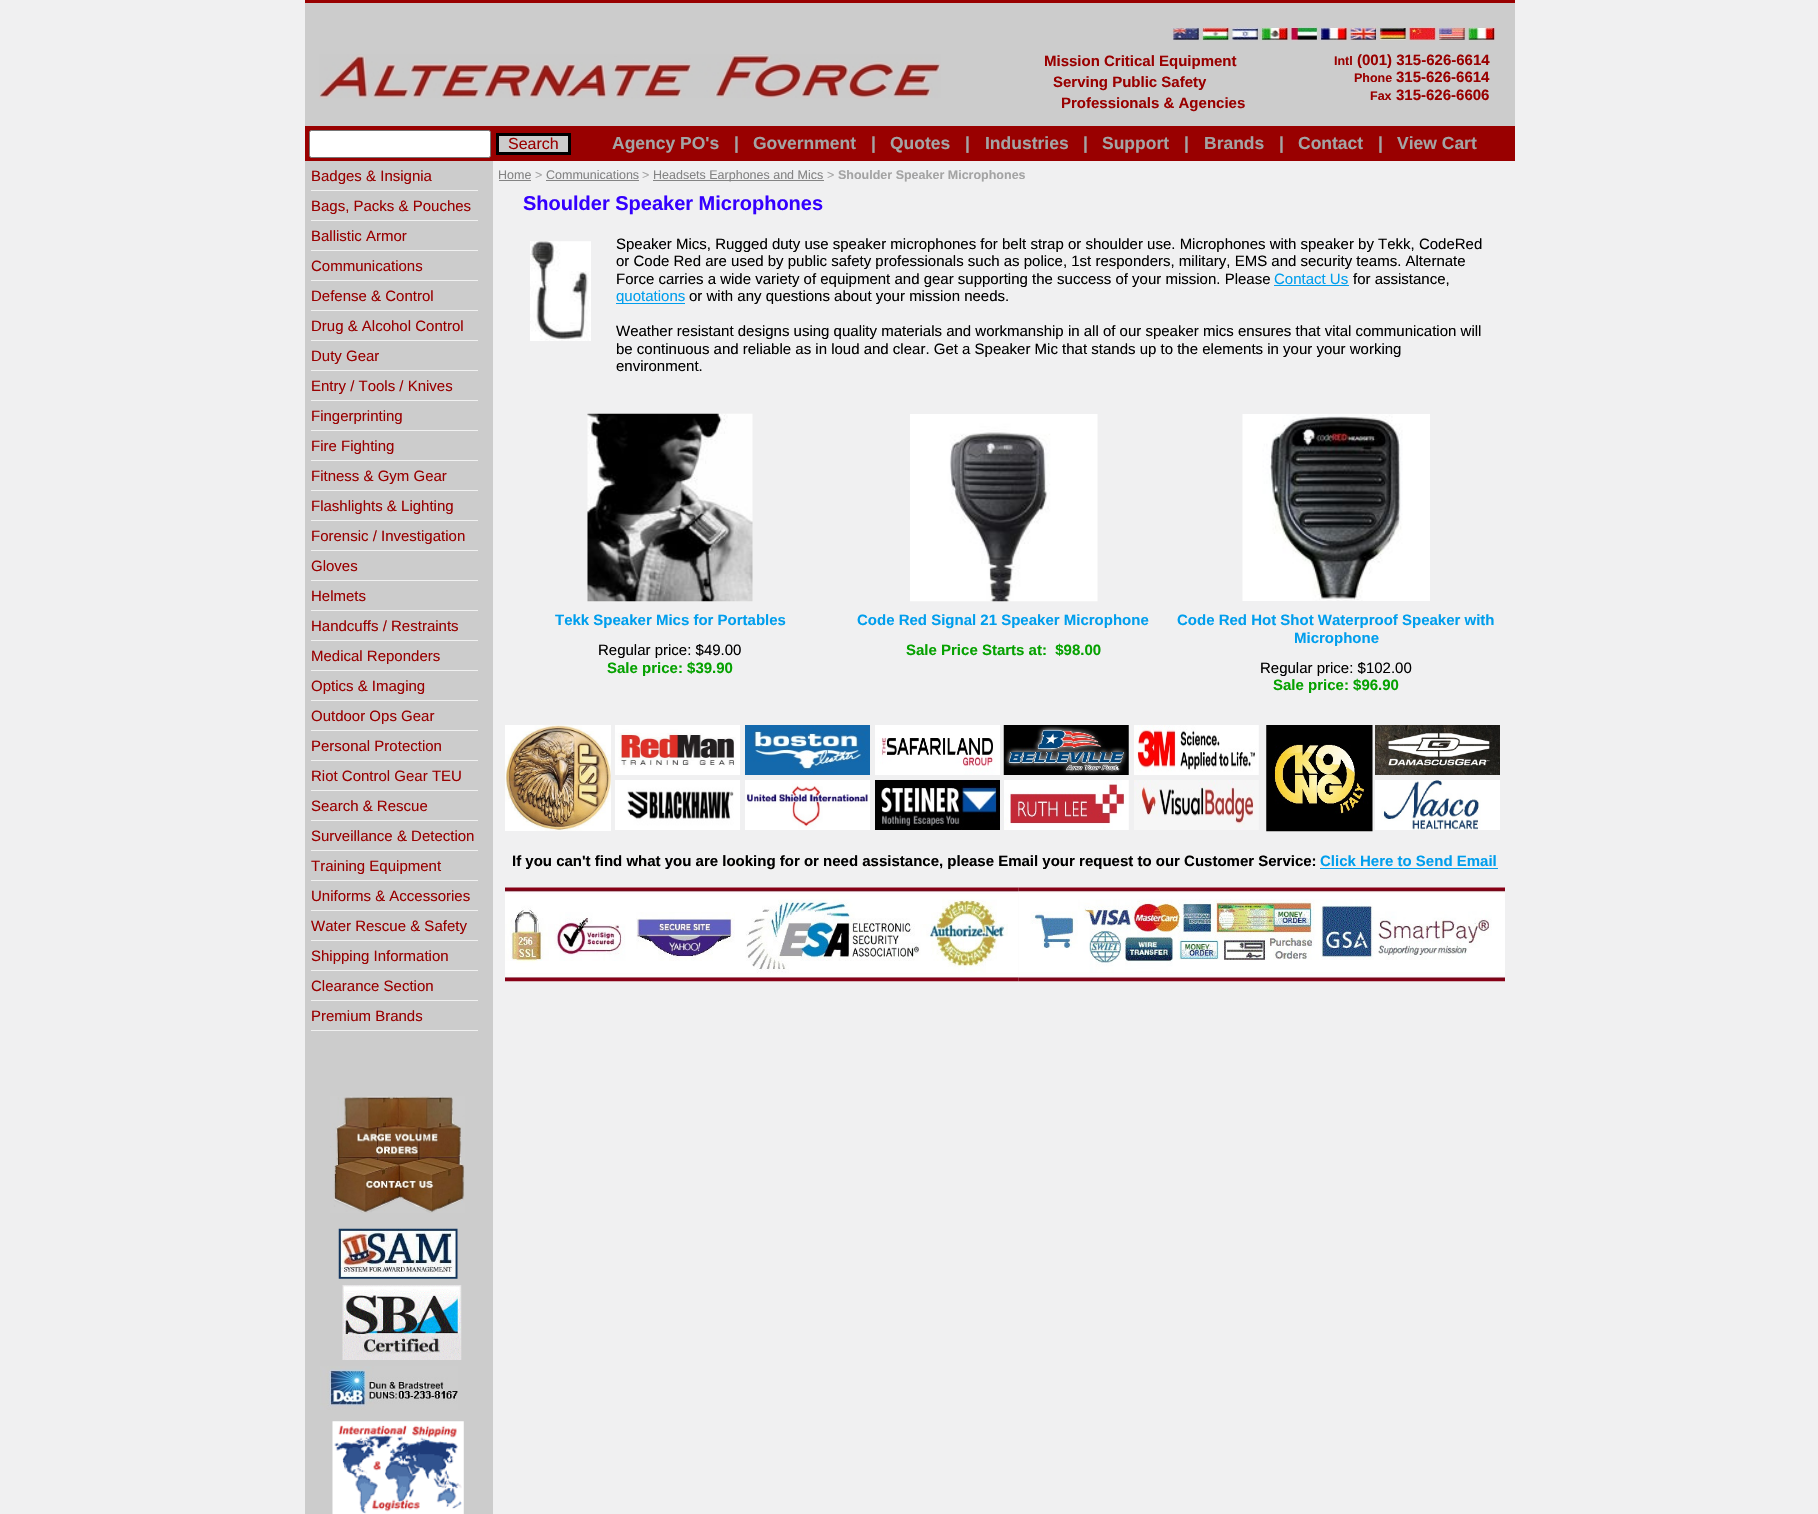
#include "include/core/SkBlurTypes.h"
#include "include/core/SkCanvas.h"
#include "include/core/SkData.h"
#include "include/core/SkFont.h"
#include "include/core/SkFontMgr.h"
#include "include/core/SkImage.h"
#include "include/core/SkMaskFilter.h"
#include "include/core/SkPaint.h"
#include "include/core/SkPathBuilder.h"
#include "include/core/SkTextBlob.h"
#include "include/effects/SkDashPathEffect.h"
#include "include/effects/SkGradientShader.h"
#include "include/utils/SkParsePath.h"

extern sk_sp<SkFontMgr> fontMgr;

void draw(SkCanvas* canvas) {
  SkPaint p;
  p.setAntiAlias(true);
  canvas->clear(SkColorSetRGB(240, 240, 241));
  p.setColor(SkColorSetRGB(153, 0, 0));
  canvas->drawRect(SkRect::MakeLTRB(305, 0, 1515, 3), p);
  p.setColor(SkColorSetRGB(204, 204, 204));
  canvas->drawRect(SkRect::MakeLTRB(305, 3, 1515, 126), p);
  canvas->drawImageRect(SkImages::DeferredFromEncodedData(SkData::MakeFromFileName("images/1.png")), SkRect::MakeLTRB(319, 54, 941, 99), SkSamplingOptions());
  canvas->drawImageRect(SkImages::DeferredFromEncodedData(SkData::MakeFromFileName("images/2.png")), SkRect::MakeLTRB(1171, 26, 1496, 41), SkSamplingOptions());
  p.setColor(SkColorSetRGB(153, 0, 0));
  canvas->drawRect(SkRect::MakeLTRB(305, 126, 1515, 161), p);
  p.setColor(SK_ColorWHITE);
  canvas->drawRoundRect(SkRect::MakeLTRB(309.5f, 130.5f, 490.5f, 157.5f), 2, 2, p);
  p.setStyle(SkPaint::kStroke_Style);
  p.setStrokeWidth(1);
  p.setColor(SkColorSetRGB(118, 118, 118));
  canvas->drawRoundRect(SkRect::MakeLTRB(309.5f, 130.5f, 490.5f, 157.5f), 2, 2, p);
  p.setStyle(SkPaint::kFill_Style);
  p.setColor(SkColorSetRGB(204, 204, 204));
  canvas->drawRect(SkRect::MakeLTRB(497.5f, 134.5f, 569.5f, 153.5f), p);
  p.setStyle(SkPaint::kStroke_Style);
  p.setStrokeWidth(3);
  p.setColor(SK_ColorBLACK);
  canvas->drawRect(SkRect::MakeLTRB(497.5f, 134.5f, 569.5f, 153.5f), p);
  p.setStyle(SkPaint::kFill_Style);
  p.setColor(SkColorSetRGB(204, 204, 204));
  canvas->drawRect(SkRect::MakeLTRB(305, 161, 493, 1514), p);
  p.setColor(SkColorSetRGB(240, 240, 240));
  canvas->drawRect(SkRect::MakeLTRB(311, 190, 478, 191), p);
  canvas->drawRect(SkRect::MakeLTRB(311, 220, 478, 221), p);
  canvas->drawRect(SkRect::MakeLTRB(311, 250, 478, 251), p);
  canvas->drawRect(SkRect::MakeLTRB(311, 280, 478, 281), p);
  canvas->drawRect(SkRect::MakeLTRB(311, 310, 478, 311), p);
  canvas->drawRect(SkRect::MakeLTRB(311, 340, 478, 341), p);
  canvas->drawRect(SkRect::MakeLTRB(311, 370, 478, 371), p);
  canvas->drawRect(SkRect::MakeLTRB(311, 400, 478, 401), p);
  canvas->drawRect(SkRect::MakeLTRB(311, 430, 478, 431), p);
  canvas->drawRect(SkRect::MakeLTRB(311, 460, 478, 461), p);
  canvas->drawRect(SkRect::MakeLTRB(311, 490, 478, 491), p);
  canvas->drawRect(SkRect::MakeLTRB(311, 520, 478, 521), p);
  canvas->drawRect(SkRect::MakeLTRB(311, 550, 478, 551), p);
  canvas->drawRect(SkRect::MakeLTRB(311, 580, 478, 581), p);
  canvas->drawRect(SkRect::MakeLTRB(311, 610, 478, 611), p);
  canvas->drawRect(SkRect::MakeLTRB(311, 640, 478, 641), p);
  canvas->drawRect(SkRect::MakeLTRB(311, 670, 478, 671), p);
  canvas->drawRect(SkRect::MakeLTRB(311, 700, 478, 701), p);
  canvas->drawRect(SkRect::MakeLTRB(311, 730, 478, 731), p);
  canvas->drawRect(SkRect::MakeLTRB(311, 760, 478, 761), p);
  canvas->drawRect(SkRect::MakeLTRB(311, 790, 478, 791), p);
  canvas->drawRect(SkRect::MakeLTRB(311, 820, 478, 821), p);
  canvas->drawRect(SkRect::MakeLTRB(311, 850, 478, 851), p);
  canvas->drawRect(SkRect::MakeLTRB(311, 880, 478, 881), p);
  canvas->drawRect(SkRect::MakeLTRB(311, 910, 478, 911), p);
  canvas->drawRect(SkRect::MakeLTRB(311, 940, 478, 941), p);
  canvas->drawRect(SkRect::MakeLTRB(311, 970, 478, 971), p);
  canvas->drawRect(SkRect::MakeLTRB(311, 1000, 478, 1001), p);
  canvas->drawRect(SkRect::MakeLTRB(311, 1030, 478, 1031), p);
  canvas->drawImageRect(SkImages::DeferredFromEncodedData(SkData::MakeFromFileName("images/3.png")), SkRect::MakeLTRB(330, 1096, 465, 1213), SkSamplingOptions());
  canvas->drawImageRect(SkImages::DeferredFromEncodedData(SkData::MakeFromFileName("images/4.png")), SkRect::MakeLTRB(338, 1228, 458, 1279), SkSamplingOptions());
  canvas->drawImageRect(SkImages::DeferredFromEncodedData(SkData::MakeFromFileName("images/5.png")), SkRect::MakeLTRB(342, 1285, 462, 1360), SkSamplingOptions());
  canvas->drawImageRect(SkImages::DeferredFromEncodedData(SkData::MakeFromFileName("images/6.png")), SkRect::MakeLTRB(320, 1366, 458, 1410), SkSamplingOptions());
  canvas->drawImageRect(SkImages::DeferredFromEncodedData(SkData::MakeFromFileName("images/7.png")), SkRect::MakeLTRB(332, 1421, 464, 1514), SkSamplingOptions());
  p.setColor(SkColorSetRGB(132, 132, 132));
  canvas->drawRect(SkRect::MakeLTRB(499, 180, 531, 181), p);
  canvas->drawRect(SkRect::MakeLTRB(546, 180, 639, 181), p);
  canvas->drawRect(SkRect::MakeLTRB(653, 180, 824, 181), p);
  canvas->drawImageRect(SkImages::DeferredFromEncodedData(SkData::MakeFromFileName("images/8.png")), SkRect::MakeLTRB(530, 241, 591, 341), SkSamplingOptions());
  p.setColor(SkColorSetRGB(0, 158, 237));
  canvas->drawRect(SkRect::MakeLTRB(1274, 285, 1349, 286), p);
  canvas->drawRect(SkRect::MakeLTRB(616, 303, 685, 304), p);
  canvas->drawImageRect(SkImages::DeferredFromEncodedData(SkData::MakeFromFileName("images/9.png")), SkRect::MakeLTRB(587, 413, 753, 602), SkSamplingOptions());
  canvas->drawImageRect(SkImages::DeferredFromEncodedData(SkData::MakeFromFileName("images/10.png")), SkRect::MakeLTRB(910, 414, 1098, 602), SkSamplingOptions());
  canvas->drawImageRect(SkImages::DeferredFromEncodedData(SkData::MakeFromFileName("images/11.png")), SkRect::MakeLTRB(1242, 414, 1430, 601), SkSamplingOptions());
  canvas->drawImageRect(SkImages::DeferredFromEncodedData(SkData::MakeFromFileName("images/12.png")), SkRect::MakeLTRB(505, 725, 611, 831), SkSamplingOptions());
  canvas->drawImageRect(SkImages::DeferredFromEncodedData(SkData::MakeFromFileName("images/13.png")), SkRect::MakeLTRB(615, 725, 740, 775), SkSamplingOptions());
  canvas->drawImageRect(SkImages::DeferredFromEncodedData(SkData::MakeFromFileName("images/14.png")), SkRect::MakeLTRB(745, 725, 870, 775), SkSamplingOptions());
  canvas->drawImageRect(SkImages::DeferredFromEncodedData(SkData::MakeFromFileName("images/15.png")), SkRect::MakeLTRB(875, 725, 1000, 775), SkSamplingOptions());
  canvas->drawImageRect(SkImages::DeferredFromEncodedData(SkData::MakeFromFileName("images/16.png")), SkRect::MakeLTRB(1003, 725, 1129, 775), SkSamplingOptions());
  canvas->drawImageRect(SkImages::DeferredFromEncodedData(SkData::MakeFromFileName("images/17.png")), SkRect::MakeLTRB(1134, 725, 1259, 775), SkSamplingOptions());
  canvas->drawImageRect(SkImages::DeferredFromEncodedData(SkData::MakeFromFileName("images/18.png")), SkRect::MakeLTRB(1266, 725, 1373, 832), SkSamplingOptions());
  canvas->drawImageRect(SkImages::DeferredFromEncodedData(SkData::MakeFromFileName("images/19.png")), SkRect::MakeLTRB(1375, 725, 1500, 775), SkSamplingOptions());
  canvas->drawImageRect(SkImages::DeferredFromEncodedData(SkData::MakeFromFileName("images/20.png")), SkRect::MakeLTRB(615, 780, 740, 830), SkSamplingOptions());
  canvas->drawImageRect(SkImages::DeferredFromEncodedData(SkData::MakeFromFileName("images/21.png")), SkRect::MakeLTRB(745, 780, 870, 830), SkSamplingOptions());
  canvas->drawImageRect(SkImages::DeferredFromEncodedData(SkData::MakeFromFileName("images/22.png")), SkRect::MakeLTRB(875, 780, 1000, 830), SkSamplingOptions());
  canvas->drawImageRect(SkImages::DeferredFromEncodedData(SkData::MakeFromFileName("images/23.png")), SkRect::MakeLTRB(1004, 780, 1129, 830), SkSamplingOptions());
  canvas->drawImageRect(SkImages::DeferredFromEncodedData(SkData::MakeFromFileName("images/24.png")), SkRect::MakeLTRB(1134, 780, 1259, 830), SkSamplingOptions());
  canvas->drawImageRect(SkImages::DeferredFromEncodedData(SkData::MakeFromFileName("images/25.png")), SkRect::MakeLTRB(1375, 780, 1500, 830), SkSamplingOptions());
  canvas->drawRect(SkRect::MakeLTRB(1320, 868, 1498, 869), p);
  canvas->drawImageRect(SkImages::DeferredFromEncodedData(SkData::MakeFromFileName("images/26.png")), SkRect::MakeLTRB(505, 887, 1019, 982), SkSamplingOptions());
  canvas->drawImageRect(SkImages::DeferredFromEncodedData(SkData::MakeFromFileName("images/27.png")), SkRect::MakeLTRB(1018, 887, 1505, 982), SkSamplingOptions());
  SkFont font1(fontMgr->matchFamilyStyle("Liberation Sans", SkFontStyle::Bold()), 15);
  font1.setSubpixel(true);
  p.setColor(SkColorSetRGB(153, 0, 0));
  canvas->drawString("Mission Critical Equipment", 1044, 66, font1, p);
  canvas->drawString("Serving Public Safety", 1053, 87, font1, p);
  canvas->drawString("Professionals & Agencies", 1061, 108, font1, p);
  SkFont font2(fontMgr->matchFamilyStyle("Liberation Sans", SkFontStyle::Bold()), 12.5f);
  font2.setSubpixel(true);
  canvas->drawString("Intl", 1334, 65, font2, p);
  canvas->drawString("(001) 315-626-6614", 1357, 65, font1, p);
  canvas->drawString("Phone", 1354, 82, font2, p);
  canvas->drawString("315-626-6614", 1396, 82, font1, p);
  canvas->drawString("Fax", 1370, 100, font2, p);
  canvas->drawString("315-626-6606", 1396, 100, font1, p);
  SkFont font3(fontMgr->matchFamilyStyle("Liberation Sans", SkFontStyle::Normal()), 16);
  font3.setSubpixel(true);
  canvas->drawString("Search", 508, 149, font3, p);
  SkFont font4(fontMgr->matchFamilyStyle("Liberation Sans", SkFontStyle::Bold()), 17.5f);
  font4.setSubpixel(true);
  p.setColor(SkColorSetRGB(164, 164, 164));
  canvas->drawString("Agency PO's", 612, 149, font4, p);
  canvas->drawString("|", 734, 149, font4, p);
  canvas->drawString("Government", 753, 149, font4, p);
  canvas->drawString("|", 871, 149, font4, p);
  canvas->drawString("Quotes", 890, 149, font4, p);
  canvas->drawString("|", 965, 149, font4, p);
  canvas->drawString("Industries", 985, 149, font4, p);
  canvas->drawString("|", 1083, 149, font4, p);
  canvas->drawString("Support", 1102, 149, font4, p);
  canvas->drawString("|", 1184, 149, font4, p);
  canvas->drawString("Brands", 1204, 149, font4, p);
  canvas->drawString("|", 1279, 149, font4, p);
  canvas->drawString("Contact", 1298, 149, font4, p);
  canvas->drawString("|", 1378, 149, font4, p);
  canvas->drawString("View Cart", 1397, 149, font4, p);
  SkFont font5(fontMgr->matchFamilyStyle("Liberation Sans", SkFontStyle::Normal()), 15);
  font5.setSubpixel(true);
  p.setColor(SkColorSetRGB(153, 0, 0));
  canvas->drawString("Badges & Insignia", 311, 181, font5, p);
  canvas->drawString("Bags, Packs & Pouches", 311, 211, font5, p);
  canvas->drawString("Ballistic Armor", 311, 241, font5, p);
  canvas->drawString("Communications", 311, 271, font5, p);
  canvas->drawString("Defense & Control", 311, 301, font5, p);
  canvas->drawString("Drug & Alcohol Control", 311, 331, font5, p);
  canvas->drawString("Duty Gear", 311, 361, font5, p);
  canvas->drawString("Entry / Tools / Knives", 311, 391, font5, p);
  canvas->drawString("Fingerprinting", 311, 421, font5, p);
  canvas->drawString("Fire Fighting", 311, 451, font5, p);
  canvas->drawString("Fitness & Gym Gear", 311, 481, font5, p);
  canvas->drawString("Flashlights & Lighting", 311, 511, font5, p);
  canvas->drawString("Forensic / Investigation", 311, 541, font5, p);
  canvas->drawString("Gloves", 311, 571, font5, p);
  canvas->drawString("Helmets", 311, 601, font5, p);
  canvas->drawString("Handcuffs / Restraints", 311, 631, font5, p);
  canvas->drawString("Medical Reponders", 311, 661, font5, p);
  canvas->drawString("Optics & Imaging", 311, 691, font5, p);
  canvas->drawString("Outdoor Ops Gear", 311, 721, font5, p);
  canvas->drawString("Personal Protection", 311, 751, font5, p);
  canvas->drawString("Riot Control Gear TEU", 311, 781, font5, p);
  canvas->drawString("Search & Rescue", 311, 811, font5, p);
  canvas->drawString("Surveillance & Detection", 311, 841, font5, p);
  canvas->drawString("Training Equipment", 311, 871, font5, p);
  canvas->drawString("Uniforms & Accessories", 311, 901, font5, p);
  canvas->drawString("Water Rescue & Safety", 311, 931, font5, p);
  canvas->drawString("Shipping Information", 311, 961, font5, p);
  canvas->drawString("Clearance Section", 311, 991, font5, p);
  canvas->drawString("Premium Brands", 311, 1021, font5, p);
  SkFont font6(fontMgr->matchFamilyStyle("Liberation Sans", SkFontStyle::Normal()), 12.5f);
  font6.setSubpixel(true);
  p.setColor(SkColorSetRGB(132, 132, 132));
  canvas->drawString("Home", 498, 179, font6, p);
  p.setColor(SkColorSetRGB(164, 164, 164));
  canvas->drawString(">", 535, 179, font6, p);
  p.setColor(SkColorSetRGB(132, 132, 132));
  canvas->drawString("Communications", 546, 179, font6, p);
  p.setColor(SkColorSetRGB(164, 164, 164));
  canvas->drawString(">", 642, 179, font6, p);
  p.setColor(SkColorSetRGB(132, 132, 132));
  canvas->drawString("Headsets Earphones and Mics", 653, 179, font6, p);
  p.setColor(SkColorSetRGB(164, 164, 164));
  canvas->drawString(">", 827, 179, font6, p);
  canvas->drawString("Shoulder Speaker Microphones", 838, 179, font2, p);
  SkFont font7(fontMgr->matchFamilyStyle("Liberation Sans", SkFontStyle::Bold()), 20);
  font7.setSubpixel(true);
  p.setColor(SkColorSetRGB(52, 0, 255));
  canvas->drawString("Shoulder Speaker Microphones", 523, 210, font7, p);
  p.setColor(SK_ColorBLACK);
  canvas->drawString("Speaker Mics, Rugged duty use speaker microphones for belt strap or shoulder use. Microphones with speaker by Tekk, CodeRed", 616, 249, font5, p);
  canvas->drawString("or Code Red are used by public safety professionals such as police, 1st responders, military, EMS and security teams. Alternate", 616, 266, font5, p);
  canvas->drawString("Force carries a wide variety of equipment and gear supporting the success of your mission. Please", 616, 284, font5, p);
  p.setColor(SkColorSetRGB(0, 158, 237));
  canvas->drawString("Contact Us", 1274, 284, font5, p);
  p.setColor(SK_ColorBLACK);
  canvas->drawString("for assistance,", 1353, 284, font5, p);
  p.setColor(SkColorSetRGB(0, 158, 237));
  canvas->drawString("quotations", 616, 301, font5, p);
  p.setColor(SK_ColorBLACK);
  canvas->drawString("or with any questions about your mission needs.", 689, 301, font5, p);
  canvas->drawString("Weather resistant designs using quality materials and workmanship in all of our speaker mics ensures that vital communication will", 616, 336, font5, p);
  canvas->drawString("be continuous and reliable as in loud and clear. Get a Speaker Mic that stands up to the elements in your your working", 616, 354, font5, p);
  canvas->drawString("environment.", 616, 371, font5, p);
  p.setColor(SkColorSetRGB(0, 158, 237));
  canvas->drawString("Tekk Speaker Mics for Portables", 555, 625, font1, p);
  p.setColor(SK_ColorBLACK);
  canvas->drawString("Regular price: $49.00", 598, 655, font5, p);
  p.setColor(SkColorSetRGB(5, 161, 0));
  canvas->drawString("Sale price: $39.90", 607, 673, font1, p);
  p.setColor(SkColorSetRGB(0, 158, 237));
  canvas->drawString("Code Red Signal 21 Speaker Microphone", 857, 625, font1, p);
  p.setColor(SkColorSetRGB(5, 161, 0));
  canvas->drawString("Sale Price Starts at:  $98.00", 906, 655, font1, p);
  p.setColor(SkColorSetRGB(0, 158, 237));
  canvas->drawString("Code Red Hot Shot Waterproof Speaker with", 1177, 625, font1, p);
  canvas->drawString("Microphone", 1294, 643, font1, p);
  p.setColor(SK_ColorBLACK);
  canvas->drawString("Regular price: $102.00", 1260, 673, font5, p);
  p.setColor(SkColorSetRGB(5, 161, 0));
  canvas->drawString("Sale price: $96.90", 1273, 690, font1, p);
  p.setColor(SK_ColorBLACK);
  canvas->drawString("If you can't find what you are looking for or need assistance, please Email your request to our Customer Service:", 512, 866, font1, p);
  p.setColor(SkColorSetRGB(0, 158, 237));
  canvas->drawString("Click Here to Send Email", 1320, 866, font1, p);
}
